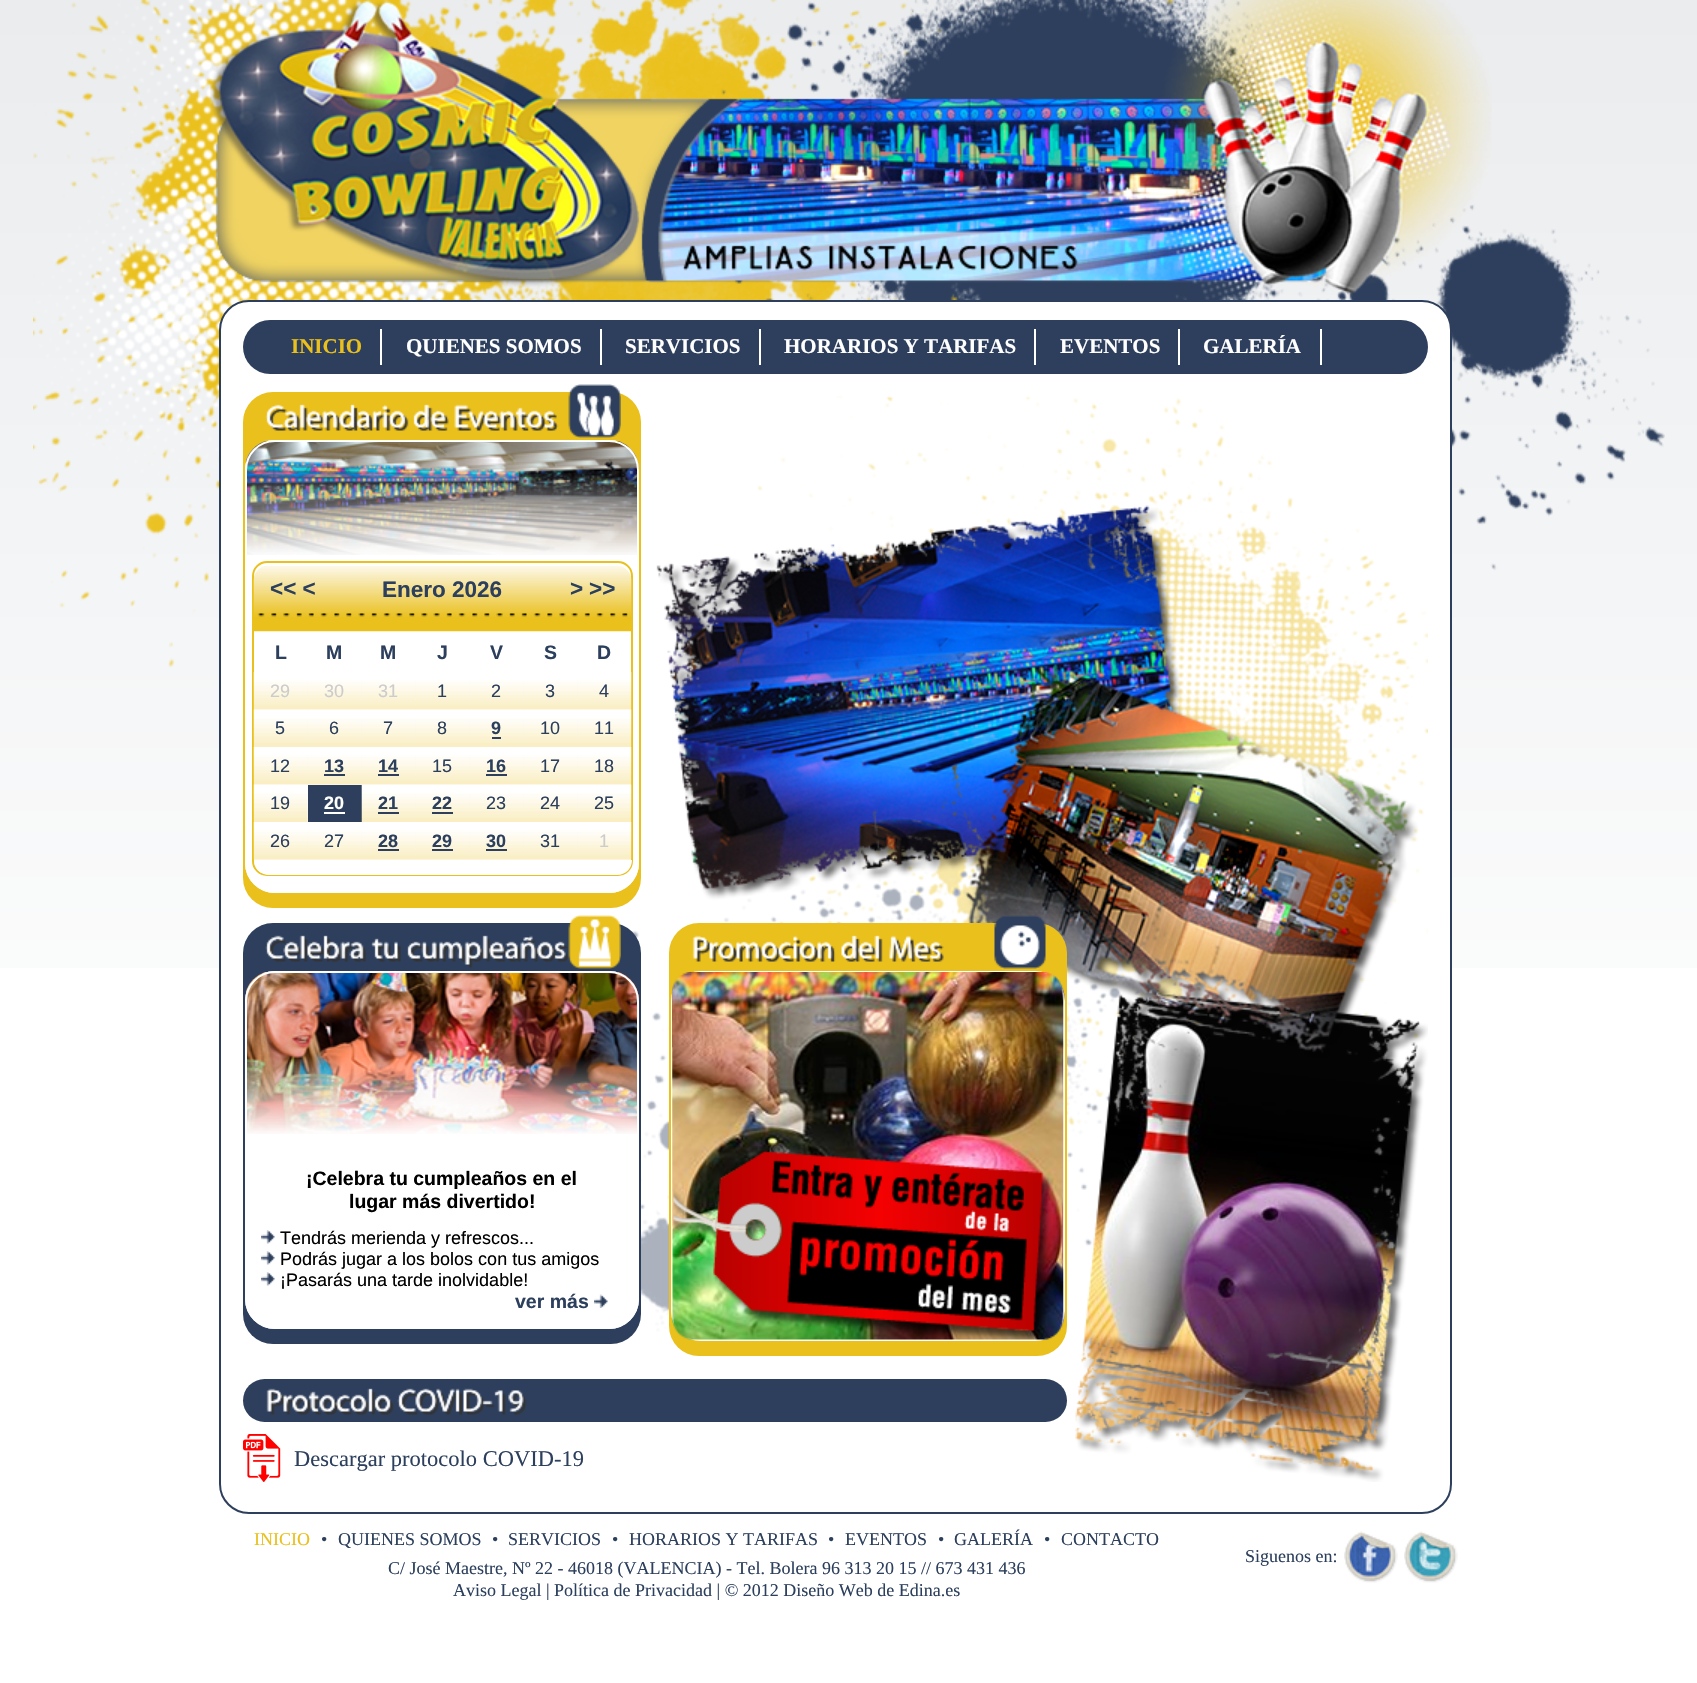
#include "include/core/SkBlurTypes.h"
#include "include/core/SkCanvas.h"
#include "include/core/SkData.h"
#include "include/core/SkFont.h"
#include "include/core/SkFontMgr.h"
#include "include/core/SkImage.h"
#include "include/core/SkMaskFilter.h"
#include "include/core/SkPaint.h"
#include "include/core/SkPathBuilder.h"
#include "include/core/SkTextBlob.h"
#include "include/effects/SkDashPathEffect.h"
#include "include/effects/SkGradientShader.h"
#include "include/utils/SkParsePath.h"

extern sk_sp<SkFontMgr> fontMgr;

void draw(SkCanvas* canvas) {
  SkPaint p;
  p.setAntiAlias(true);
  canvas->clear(SK_ColorWHITE);
  canvas->drawImageRect(SkImages::DeferredFromEncodedData(SkData::MakeFromFileName("images/1.png")), SkRect::MakeLTRB(0, 0, 1697, 968), SkSamplingOptions());
  canvas->drawImageRect(SkImages::DeferredFromEncodedData(SkData::MakeFromFileName("images/2.png")), SkRect::MakeLTRB(33, 0, 1665, 668), SkSamplingOptions());
  canvas->drawImageRect(SkImages::DeferredFromEncodedData(SkData::MakeFromFileName("images/3.png")), SkRect::MakeLTRB(210, 0, 1492, 300), SkSamplingOptions());
  p.setColor(SK_ColorWHITE);
  canvas->drawRoundRect(SkRect::MakeLTRB(220, 301, 1451, 1513), 29, 29, p);
  p.setStyle(SkPaint::kStroke_Style);
  p.setStrokeWidth(2);
  p.setColor(SkColorSetRGB(46, 63, 93));
  canvas->drawRoundRect(SkRect::MakeLTRB(220, 301, 1451, 1513), 29, 29, p);
  p.setStyle(SkPaint::kFill_Style);
  canvas->drawRoundRect(SkRect::MakeLTRB(243, 320, 1428, 374), 27, 27, p);
  p.setColor(SK_ColorWHITE);
  canvas->drawRect(SkRect::MakeLTRB(380, 329, 382, 365), p);
  canvas->drawRect(SkRect::MakeLTRB(600, 329, 602, 365), p);
  canvas->drawRect(SkRect::MakeLTRB(759, 329, 761, 365), p);
  canvas->drawRect(SkRect::MakeLTRB(1034, 329, 1036, 365), p);
  canvas->drawRect(SkRect::MakeLTRB(1178, 329, 1180, 365), p);
  canvas->drawRect(SkRect::MakeLTRB(1320, 329, 1322, 365), p);
  canvas->drawImageRect(SkImages::DeferredFromEncodedData(SkData::MakeFromFileName("images/4.png")), SkRect::MakeLTRB(631, 396, 1428, 1482), SkSamplingOptions());
  p.setColor(SkColorSetRGB(234, 192, 28));
  canvas->drawRoundRect(SkRect::MakeLTRB(243, 392, 641, 908), 30, 30, p);
  canvas->drawImageRect(SkImages::DeferredFromEncodedData(SkData::MakeFromFileName("images/5.png")), SkRect::MakeLTRB(265, 404, 409, 431), SkSamplingOptions());
  canvas->drawImageRect(SkImages::DeferredFromEncodedData(SkData::MakeFromFileName("images/6.png")), SkRect::MakeLTRB(413, 404, 449, 431), SkSamplingOptions());
  canvas->drawImageRect(SkImages::DeferredFromEncodedData(SkData::MakeFromFileName("images/7.png")), SkRect::MakeLTRB(454, 404, 559, 431), SkSamplingOptions());
  canvas->drawImageRect(SkImages::DeferredFromEncodedData(SkData::MakeFromFileName("images/8.png")), SkRect::MakeLTRB(568, 384, 621, 438), SkSamplingOptions());
  p.setColor(SK_ColorWHITE);
  canvas->drawRoundRect(SkRect::MakeLTRB(245, 440, 639, 893), 30, 30, p);
  canvas->drawImageRect(SkImages::DeferredFromEncodedData(SkData::MakeFromFileName("images/9.png")), SkRect::MakeLTRB(246, 441, 639, 555), SkSamplingOptions());
  p.setStyle(SkPaint::kStroke_Style);
  canvas->drawRoundRect(SkRect::MakeLTRB(246, 441, 638, 892), 29, 29, p);
  p.setColor(SkColorSetRGB(234, 192, 28));
  canvas->drawRoundRect(SkRect::MakeLTRB(253, 562, 632, 875), 14, 14, p);
  canvas->drawImageRect(SkImages::DeferredFromEncodedData(SkData::MakeFromFileName("images/10.png")), SkRect::MakeLTRB(253, 565, 632, 632), SkSamplingOptions());
  canvas->drawImageRect(SkImages::DeferredFromEncodedData(SkData::MakeFromFileName("images/11.png")), SkRect::MakeLTRB(257, 613, 628, 617), SkSamplingOptions());
  canvas->drawImageRect(SkImages::DeferredFromEncodedData(SkData::MakeFromFileName("images/12.png")), SkRect::MakeLTRB(253, 672, 308, 710), SkSamplingOptions());
  canvas->drawImageRect(SkImages::DeferredFromEncodedData(SkData::MakeFromFileName("images/13.png")), SkRect::MakeLTRB(307, 680, 362, 710), SkSamplingOptions());
  canvas->drawImageRect(SkImages::DeferredFromEncodedData(SkData::MakeFromFileName("images/13.png")), SkRect::MakeLTRB(361, 680, 416, 710), SkSamplingOptions());
  canvas->drawImageRect(SkImages::DeferredFromEncodedData(SkData::MakeFromFileName("images/13.png")), SkRect::MakeLTRB(415, 680, 470, 710), SkSamplingOptions());
  canvas->drawImageRect(SkImages::DeferredFromEncodedData(SkData::MakeFromFileName("images/13.png")), SkRect::MakeLTRB(469, 680, 524, 710), SkSamplingOptions());
  canvas->drawImageRect(SkImages::DeferredFromEncodedData(SkData::MakeFromFileName("images/13.png")), SkRect::MakeLTRB(523, 680, 578, 710), SkSamplingOptions());
  canvas->drawImageRect(SkImages::DeferredFromEncodedData(SkData::MakeFromFileName("images/14.png")), SkRect::MakeLTRB(577, 672, 632, 710), SkSamplingOptions());
  canvas->drawImageRect(SkImages::DeferredFromEncodedData(SkData::MakeFromFileName("images/15.png")), SkRect::MakeLTRB(253, 709, 308, 747), SkSamplingOptions());
  canvas->drawImageRect(SkImages::DeferredFromEncodedData(SkData::MakeFromFileName("images/16.png")), SkRect::MakeLTRB(307, 709, 362, 747), SkSamplingOptions());
  canvas->drawImageRect(SkImages::DeferredFromEncodedData(SkData::MakeFromFileName("images/16.png")), SkRect::MakeLTRB(361, 709, 416, 747), SkSamplingOptions());
  canvas->drawImageRect(SkImages::DeferredFromEncodedData(SkData::MakeFromFileName("images/16.png")), SkRect::MakeLTRB(415, 709, 470, 747), SkSamplingOptions());
  canvas->drawImageRect(SkImages::DeferredFromEncodedData(SkData::MakeFromFileName("images/16.png")), SkRect::MakeLTRB(469, 709, 524, 747), SkSamplingOptions());
  p.setStyle(SkPaint::kFill_Style);
  p.setColor(SkColorSetRGB(45, 63, 93));
  canvas->drawRect(SkRect::MakeLTRB(492, 737, 501, 739), p);
  canvas->drawImageRect(SkImages::DeferredFromEncodedData(SkData::MakeFromFileName("images/16.png")), SkRect::MakeLTRB(523, 709, 578, 747), SkSamplingOptions());
  canvas->drawImageRect(SkImages::DeferredFromEncodedData(SkData::MakeFromFileName("images/17.png")), SkRect::MakeLTRB(577, 709, 632, 747), SkSamplingOptions());
  canvas->drawImageRect(SkImages::DeferredFromEncodedData(SkData::MakeFromFileName("images/12.png")), SkRect::MakeLTRB(253, 747, 308, 785), SkSamplingOptions());
  canvas->drawImageRect(SkImages::DeferredFromEncodedData(SkData::MakeFromFileName("images/13.png")), SkRect::MakeLTRB(307, 755, 362, 785), SkSamplingOptions());
  canvas->drawRect(SkRect::MakeLTRB(324, 774, 345, 776), p);
  canvas->drawImageRect(SkImages::DeferredFromEncodedData(SkData::MakeFromFileName("images/13.png")), SkRect::MakeLTRB(361, 755, 416, 785), SkSamplingOptions());
  canvas->drawRect(SkRect::MakeLTRB(378, 774, 399, 776), p);
  canvas->drawImageRect(SkImages::DeferredFromEncodedData(SkData::MakeFromFileName("images/13.png")), SkRect::MakeLTRB(415, 755, 470, 785), SkSamplingOptions());
  canvas->drawImageRect(SkImages::DeferredFromEncodedData(SkData::MakeFromFileName("images/13.png")), SkRect::MakeLTRB(469, 755, 524, 785), SkSamplingOptions());
  canvas->drawRect(SkRect::MakeLTRB(486, 774, 507, 776), p);
  canvas->drawImageRect(SkImages::DeferredFromEncodedData(SkData::MakeFromFileName("images/13.png")), SkRect::MakeLTRB(523, 755, 578, 785), SkSamplingOptions());
  canvas->drawImageRect(SkImages::DeferredFromEncodedData(SkData::MakeFromFileName("images/14.png")), SkRect::MakeLTRB(577, 747, 632, 785), SkSamplingOptions());
  canvas->drawImageRect(SkImages::DeferredFromEncodedData(SkData::MakeFromFileName("images/15.png")), SkRect::MakeLTRB(253, 784, 308, 822), SkSamplingOptions());
  p.setColor(SkColorSetRGB(46, 63, 93));
  canvas->drawRect(SkRect::MakeLTRB(308, 785, 362, 822), p);
  p.setColor(SK_ColorWHITE);
  canvas->drawRect(SkRect::MakeLTRB(324, 812, 345, 814), p);
  canvas->drawImageRect(SkImages::DeferredFromEncodedData(SkData::MakeFromFileName("images/18.png")), SkRect::MakeLTRB(361, 784, 416, 822), SkSamplingOptions());
  p.setColor(SkColorSetRGB(45, 63, 93));
  canvas->drawRect(SkRect::MakeLTRB(378, 812, 399, 814), p);
  canvas->drawImageRect(SkImages::DeferredFromEncodedData(SkData::MakeFromFileName("images/16.png")), SkRect::MakeLTRB(415, 784, 470, 822), SkSamplingOptions());
  canvas->drawRect(SkRect::MakeLTRB(432, 812, 453, 814), p);
  canvas->drawImageRect(SkImages::DeferredFromEncodedData(SkData::MakeFromFileName("images/16.png")), SkRect::MakeLTRB(469, 784, 524, 822), SkSamplingOptions());
  canvas->drawImageRect(SkImages::DeferredFromEncodedData(SkData::MakeFromFileName("images/16.png")), SkRect::MakeLTRB(523, 784, 578, 822), SkSamplingOptions());
  canvas->drawImageRect(SkImages::DeferredFromEncodedData(SkData::MakeFromFileName("images/17.png")), SkRect::MakeLTRB(577, 784, 632, 822), SkSamplingOptions());
  canvas->drawImageRect(SkImages::DeferredFromEncodedData(SkData::MakeFromFileName("images/12.png")), SkRect::MakeLTRB(253, 822, 308, 860), SkSamplingOptions());
  canvas->drawImageRect(SkImages::DeferredFromEncodedData(SkData::MakeFromFileName("images/13.png")), SkRect::MakeLTRB(307, 830, 362, 860), SkSamplingOptions());
  canvas->drawImageRect(SkImages::DeferredFromEncodedData(SkData::MakeFromFileName("images/13.png")), SkRect::MakeLTRB(361, 830, 416, 860), SkSamplingOptions());
  canvas->drawRect(SkRect::MakeLTRB(378, 849, 399, 851), p);
  canvas->drawImageRect(SkImages::DeferredFromEncodedData(SkData::MakeFromFileName("images/13.png")), SkRect::MakeLTRB(415, 830, 470, 860), SkSamplingOptions());
  canvas->drawRect(SkRect::MakeLTRB(432, 849, 453, 851), p);
  canvas->drawImageRect(SkImages::DeferredFromEncodedData(SkData::MakeFromFileName("images/13.png")), SkRect::MakeLTRB(469, 830, 524, 860), SkSamplingOptions());
  canvas->drawRect(SkRect::MakeLTRB(486, 849, 507, 851), p);
  canvas->drawImageRect(SkImages::DeferredFromEncodedData(SkData::MakeFromFileName("images/13.png")), SkRect::MakeLTRB(523, 830, 578, 860), SkSamplingOptions());
  canvas->drawImageRect(SkImages::DeferredFromEncodedData(SkData::MakeFromFileName("images/14.png")), SkRect::MakeLTRB(577, 822, 632, 860), SkSamplingOptions());
  p.setColor(SK_ColorWHITE);
  canvas->drawPath(SkPathBuilder().moveTo(254, 860).lineTo(632, 860).cubicTo(632, 868.5f, 625.5f, 875, 617, 875).lineTo(269, 875).cubicTo(260.5f, 875, 254, 868.5f, 254, 860).close().detach(), p);
  p.setColor(SkColorSetRGB(46, 63, 93));
  canvas->drawRoundRect(SkRect::MakeLTRB(243, 923, 641, 1344), 30, 30, p);
  canvas->drawImageRect(SkImages::DeferredFromEncodedData(SkData::MakeFromFileName("images/19.png")), SkRect::MakeLTRB(265, 935, 367, 963), SkSamplingOptions());
  canvas->drawImageRect(SkImages::DeferredFromEncodedData(SkData::MakeFromFileName("images/20.png")), SkRect::MakeLTRB(371, 938, 401, 962), SkSamplingOptions());
  canvas->drawImageRect(SkImages::DeferredFromEncodedData(SkData::MakeFromFileName("images/21.png")), SkRect::MakeLTRB(407, 935, 569, 968), SkSamplingOptions());
  canvas->drawImageRect(SkImages::DeferredFromEncodedData(SkData::MakeFromFileName("images/22.png")), SkRect::MakeLTRB(568, 915, 621, 969), SkSamplingOptions());
  p.setColor(SK_ColorWHITE);
  canvas->drawRoundRect(SkRect::MakeLTRB(245, 971, 639, 1329), 30, 30, p);
  canvas->drawImageRect(SkImages::DeferredFromEncodedData(SkData::MakeFromFileName("images/23.png")), SkRect::MakeLTRB(246, 972, 639, 1134), SkSamplingOptions());
  p.setStyle(SkPaint::kStroke_Style);
  canvas->drawRoundRect(SkRect::MakeLTRB(246, 972, 638, 1328), 29, 29, p);
  canvas->drawImageRect(SkImages::DeferredFromEncodedData(SkData::MakeFromFileName("images/24.png")), SkRect::MakeLTRB(261, 1230, 275, 1244), SkSamplingOptions());
  canvas->drawImageRect(SkImages::DeferredFromEncodedData(SkData::MakeFromFileName("images/24.png")), SkRect::MakeLTRB(261, 1251, 275, 1265), SkSamplingOptions());
  canvas->drawImageRect(SkImages::DeferredFromEncodedData(SkData::MakeFromFileName("images/24.png")), SkRect::MakeLTRB(261, 1272, 275, 1286), SkSamplingOptions());
  canvas->drawImageRect(SkImages::DeferredFromEncodedData(SkData::MakeFromFileName("images/25.png")), SkRect::MakeLTRB(594, 1294, 608, 1308), SkSamplingOptions());
  p.setStyle(SkPaint::kFill_Style);
  p.setColor(SkColorSetRGB(234, 192, 28));
  canvas->drawRoundRect(SkRect::MakeLTRB(669, 923, 1067, 1356), 30, 30, p);
  canvas->drawImageRect(SkImages::DeferredFromEncodedData(SkData::MakeFromFileName("images/26.png")), SkRect::MakeLTRB(692, 935, 836, 962), SkSamplingOptions());
  canvas->drawImageRect(SkImages::DeferredFromEncodedData(SkData::MakeFromFileName("images/27.png")), SkRect::MakeLTRB(841, 935, 883, 962), SkSamplingOptions());
  canvas->drawImageRect(SkImages::DeferredFromEncodedData(SkData::MakeFromFileName("images/28.png")), SkRect::MakeLTRB(889, 935, 944, 962), SkSamplingOptions());
  canvas->drawImageRect(SkImages::DeferredFromEncodedData(SkData::MakeFromFileName("images/29.png")), SkRect::MakeLTRB(994, 915, 1046, 969), SkSamplingOptions());
  canvas->drawImageRect(SkImages::DeferredFromEncodedData(SkData::MakeFromFileName("images/30.png")), SkRect::MakeLTRB(672, 972, 1065, 1340), SkSamplingOptions());
  p.setStyle(SkPaint::kStroke_Style);
  p.setColor(SK_ColorWHITE);
  canvas->drawRoundRect(SkRect::MakeLTRB(672, 972, 1064, 1340), 29, 29, p);
  canvas->drawImageRect(SkImages::DeferredFromEncodedData(SkData::MakeFromFileName("images/31.png")), SkRect::MakeLTRB(672, 972, 1064, 1340), SkSamplingOptions());
  p.setStyle(SkPaint::kFill_Style);
  p.setColor(SkColorSetRGB(46, 63, 93));
  canvas->drawRoundRect(SkRect::MakeLTRB(243, 1379, 1067, 1422), 21.5f, 21.5f, p);
  canvas->drawImageRect(SkImages::DeferredFromEncodedData(SkData::MakeFromFileName("images/32.png")), SkRect::MakeLTRB(266, 1388, 394, 1415), SkSamplingOptions());
  canvas->drawImageRect(SkImages::DeferredFromEncodedData(SkData::MakeFromFileName("images/33.png")), SkRect::MakeLTRB(397, 1388, 527, 1415), SkSamplingOptions());
  canvas->drawImageRect(SkImages::DeferredFromEncodedData(SkData::MakeFromFileName("images/34.png")), SkRect::MakeLTRB(243, 1434, 281, 1482), SkSamplingOptions());
  canvas->drawImageRect(SkImages::DeferredFromEncodedData(SkData::MakeFromFileName("images/35.png")), SkRect::MakeLTRB(1344, 1531, 1398, 1583), SkSamplingOptions());
  canvas->drawImageRect(SkImages::DeferredFromEncodedData(SkData::MakeFromFileName("images/36.png")), SkRect::MakeLTRB(1404, 1531, 1458, 1583), SkSamplingOptions());
  SkFont font1(fontMgr->matchFamilyStyle("Liberation Serif", SkFontStyle::Bold()), 21);
  font1.setSubpixel(true);
  p.setColor(SkColorSetRGB(234, 192, 28));
  canvas->drawString("INICIO", 291, 353, font1, p);
  p.setColor(SK_ColorWHITE);
  canvas->drawString("QUIENES SOMOS", 406, 353, font1, p);
  canvas->drawString("SERVICIOS", 625, 353, font1, p);
  canvas->drawString("HORARIOS Y TARIFAS", 784, 353, font1, p);
  canvas->drawString("EVENTOS", 1060, 353, font1, p);
  canvas->drawString("GALERÍA", 1203, 353, font1, p);
  SkFont font2(fontMgr->matchFamilyStyle("Liberation Sans", SkFontStyle::Bold()), 22.5f);
  font2.setSubpixel(true);
  p.setColor(SkColorSetRGB(44, 63, 93));
  canvas->drawString("<< <", 270, 596, font2, p);
  canvas->drawString("Enero 2026", 382, 597, font2, p);
  canvas->drawString(">", 570, 596, font2, p);
  canvas->drawString(">>", 589, 596, font2, p);
  SkFont font3(fontMgr->matchFamilyStyle("Liberation Sans", SkFontStyle::Bold()), 19.5f);
  font3.setSubpixel(true);
  canvas->drawString("L", 275, 659, font3, p);
  canvas->drawString("M", 326, 659, font3, p);
  canvas->drawString("M", 380, 659, font3, p);
  canvas->drawString("J", 437, 659, font3, p);
  canvas->drawString("V", 490, 659, font3, p);
  canvas->drawString("S", 544, 659, font3, p);
  canvas->drawString("D", 597, 659, font3, p);
  SkFont font4(fontMgr->matchFamilyStyle("Liberation Sans", SkFontStyle::Normal()), 18);
  font4.setSubpixel(true);
  p.setColor(SkColorSetRGB(204, 204, 204));
  canvas->drawString("29", 270, 697, font4, p);
  canvas->drawString("30", 324, 697, font4, p);
  canvas->drawString("31", 378, 697, font4, p);
  p.setColor(SkColorSetRGB(44, 63, 93));
  canvas->drawString("1", 437, 697, font4, p);
  canvas->drawString("2", 491, 697, font4, p);
  canvas->drawString("3", 545, 697, font4, p);
  canvas->drawString("4", 599, 697, font4, p);
  canvas->drawString("5", 275, 734, font4, p);
  canvas->drawString("6", 329, 734, font4, p);
  canvas->drawString("7", 383, 734, font4, p);
  canvas->drawString("8", 437, 734, font4, p);
  SkFont font5(fontMgr->matchFamilyStyle("Liberation Sans", SkFontStyle::Bold()), 18);
  font5.setSubpixel(true);
  canvas->drawString("9", 491, 734, font5, p);
  canvas->drawString("10", 540, 734, font4, p);
  canvas->drawString("11", 594, 734, font4, p);
  canvas->drawString("12", 270, 772, font4, p);
  canvas->drawString("13", 324, 772, font5, p);
  canvas->drawString("14", 378, 772, font5, p);
  canvas->drawString("15", 432, 772, font4, p);
  canvas->drawString("16", 486, 772, font5, p);
  canvas->drawString("17", 540, 772, font4, p);
  canvas->drawString("18", 594, 772, font4, p);
  canvas->drawString("19", 270, 809, font4, p);
  p.setColor(SK_ColorWHITE);
  canvas->drawString("20", 324, 809, font5, p);
  p.setColor(SkColorSetRGB(44, 63, 93));
  canvas->drawString("21", 378, 809, font5, p);
  canvas->drawString("22", 432, 809, font5, p);
  canvas->drawString("23", 486, 809, font4, p);
  canvas->drawString("24", 540, 809, font4, p);
  canvas->drawString("25", 594, 809, font4, p);
  canvas->drawString("26", 270, 847, font4, p);
  canvas->drawString("27", 324, 847, font4, p);
  canvas->drawString("28", 378, 847, font5, p);
  canvas->drawString("29", 432, 847, font5, p);
  canvas->drawString("30", 486, 847, font5, p);
  canvas->drawString("31", 540, 847, font4, p);
  p.setColor(SkColorSetRGB(204, 204, 204));
  canvas->drawString("1", 599, 847, font4, p);
  p.setColor(SK_ColorBLACK);
  canvas->drawString("¡Celebra tu cumpleaños en el", 306, 1185, font3, p);
  canvas->drawString("lugar más divertido!", 349, 1208, font3, p);
  canvas->drawString("Tendrás merienda y refrescos...", 280, 1244, font4, p);
  canvas->drawString("Podrás jugar a los bolos con tus amigos", 280, 1265, font4, p);
  canvas->drawString("¡Pasarás una tarde inolvidable!", 280, 1286, font4, p);
  p.setColor(SkColorSetRGB(44, 63, 93));
  canvas->drawString("ver más", 515, 1308, font3, p);
  SkFont font6(fontMgr->matchFamilyStyle("Liberation Serif", SkFontStyle::Normal()), 22.5f);
  font6.setSubpixel(true);
  canvas->drawString("Descargar protocolo COVID-19", 294, 1466, font6, p);
  SkFont font7(fontMgr->matchFamilyStyle("Liberation Serif", SkFontStyle::Normal()), 18);
  font7.setSubpixel(true);
  p.setColor(SkColorSetRGB(234, 192, 28));
  canvas->drawString("INICIO", 254, 1545, font7, p);
  p.setColor(SkColorSetRGB(44, 63, 93));
  canvas->drawString("•", 321, 1545, font7, p);
  canvas->drawString("QUIENES SOMOS", 338, 1545, font7, p);
  canvas->drawString("•", 492, 1545, font7, p);
  canvas->drawString("SERVICIOS", 508, 1545, font7, p);
  canvas->drawString("•", 612, 1545, font7, p);
  canvas->drawString("HORARIOS Y TARIFAS", 629, 1545, font7, p);
  canvas->drawString("•", 828, 1545, font7, p);
  canvas->drawString("EVENTOS", 845, 1545, font7, p);
  canvas->drawString("•", 938, 1545, font7, p);
  canvas->drawString("GALERÍA", 954, 1545, font7, p);
  canvas->drawString("•", 1044, 1545, font7, p);
  canvas->drawString("CONTACTO", 1061, 1545, font7, p);
  canvas->drawString("C/ José Maestre, Nº 22 - 46018 (VALENCIA) - Tel. Bolera 96 313 20 15 // 673 431 436", 388, 1574, font7, p);
  canvas->drawString("Aviso Legal | Política de Privacidad | © 2012 Diseño Web de Edina.es", 453, 1596, font7, p);
  canvas->drawString("Siguenos en:", 1245, 1562, font7, p);
}
